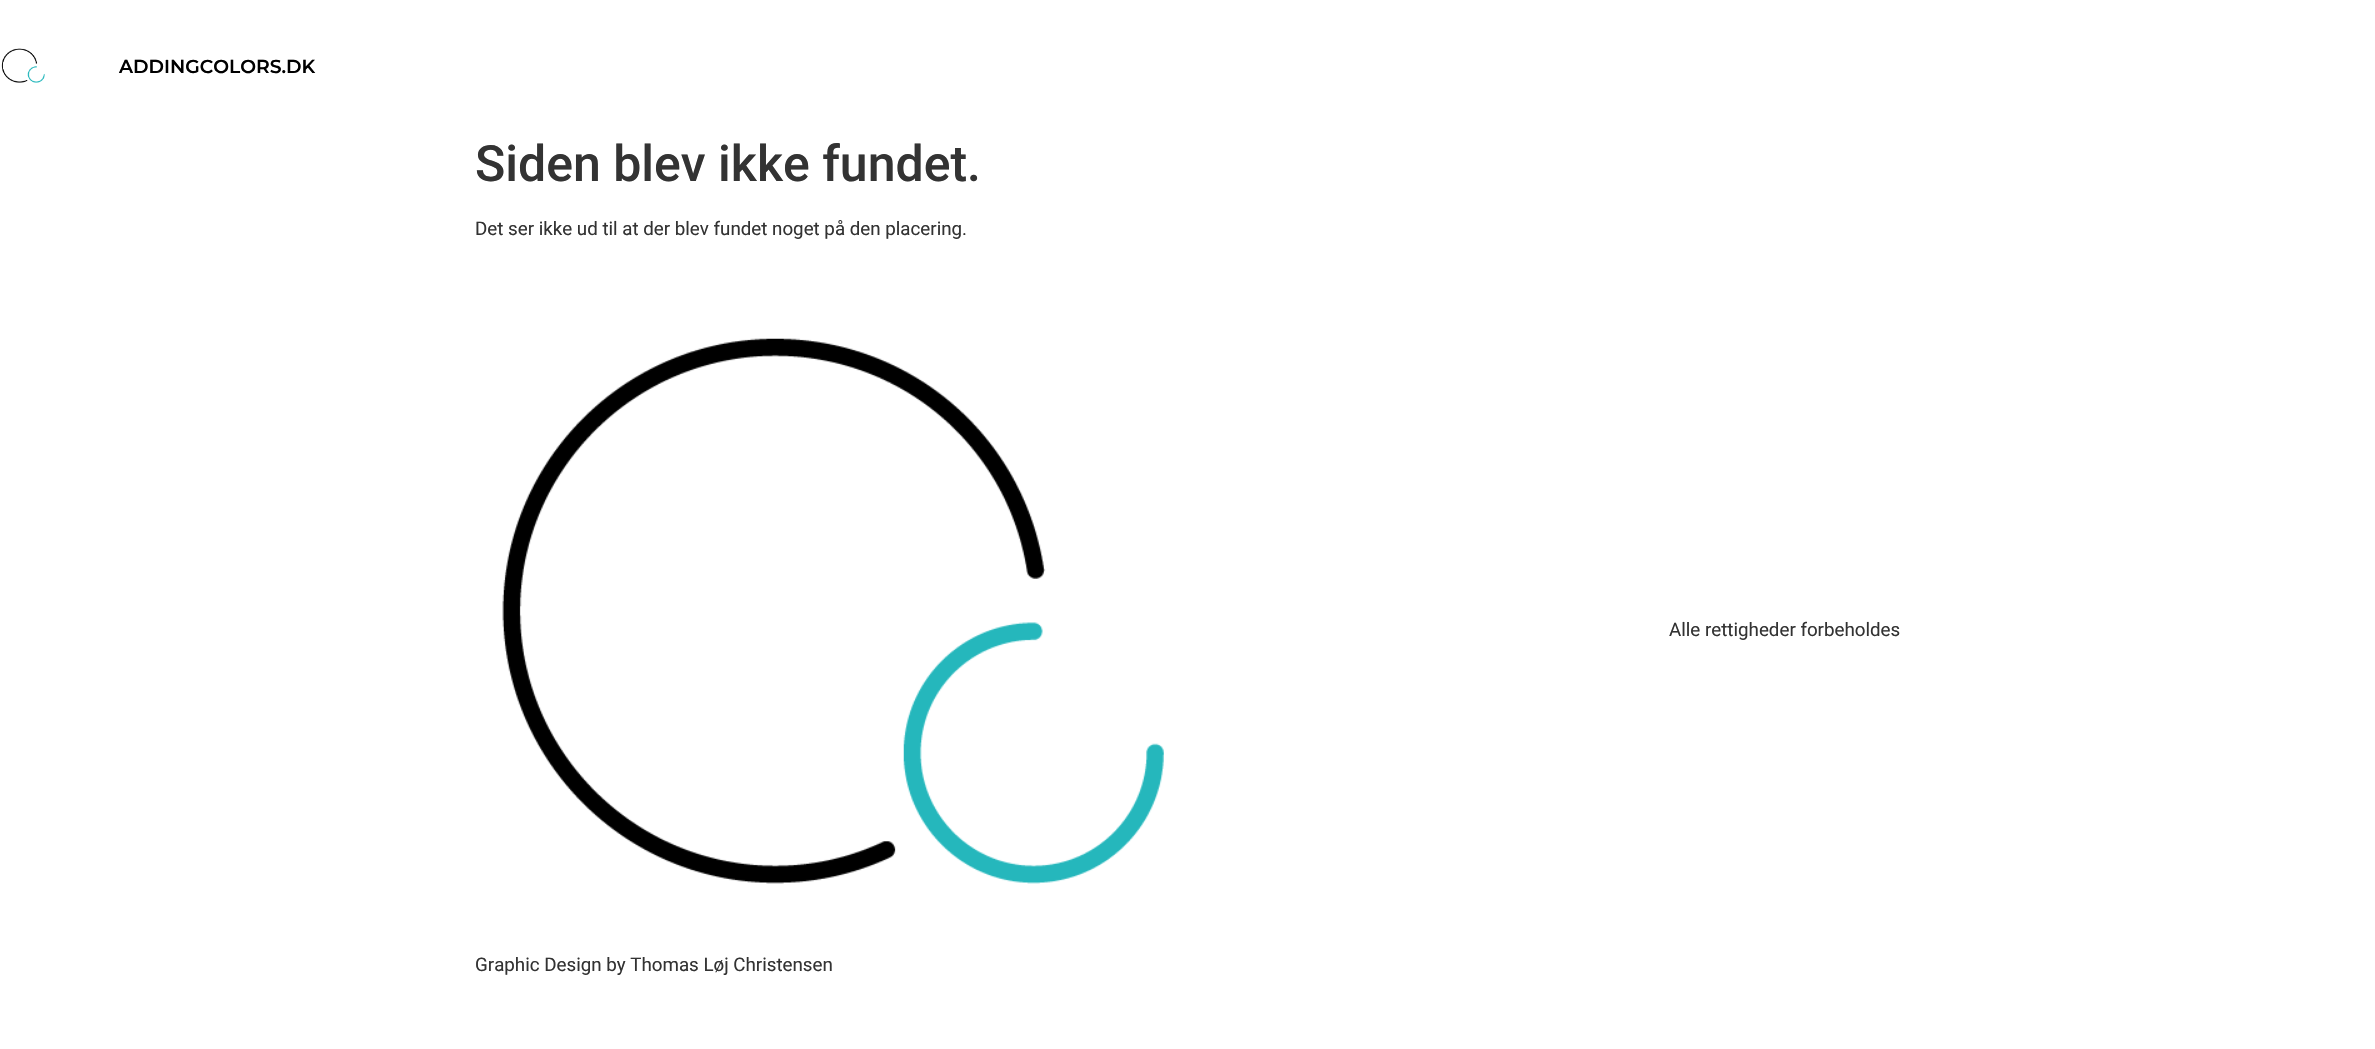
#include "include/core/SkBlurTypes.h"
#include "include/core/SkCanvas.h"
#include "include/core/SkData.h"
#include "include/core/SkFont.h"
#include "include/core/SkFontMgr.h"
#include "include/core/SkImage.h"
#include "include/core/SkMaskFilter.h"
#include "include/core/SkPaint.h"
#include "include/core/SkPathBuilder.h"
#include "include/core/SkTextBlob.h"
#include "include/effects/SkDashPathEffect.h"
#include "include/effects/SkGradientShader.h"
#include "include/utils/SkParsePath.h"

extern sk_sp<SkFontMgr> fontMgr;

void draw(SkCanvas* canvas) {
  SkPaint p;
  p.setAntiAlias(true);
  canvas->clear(SK_ColorWHITE);
  canvas->drawImageRect(SkImages::DeferredFromEncodedData(SkData::MakeFromFileName("images/1.png")), SkRect::MakeLTRB(1, 48, 45, 83), SkSamplingOptions());
  canvas->drawImageRect(SkImages::DeferredFromEncodedData(SkData::MakeFromFileName("images/2.png")), SkRect::MakeLTRB(502, 338, 1164, 884), SkSamplingOptions());
  SkFont font1(fontMgr->matchFamilyStyle("Montserrat", SkFontStyle(600, SkFontStyle::kNormal_Width, SkFontStyle::kUpright_Slant)), 18.75f);
  font1.setSubpixel(true);
  p.setColor(SK_ColorBLACK);
  canvas->drawString("ADDINGCOLORS.DK", 119, 73, font1, p);
  SkFont font2(fontMgr->matchFamilyStyle("Roboto", SkFontStyle(500, SkFontStyle::kNormal_Width, SkFontStyle::kUpright_Slant)), 50);
  font2.setSubpixel(true);
  p.setColor(SkColorSetRGB(51, 51, 51));
  canvas->drawString("Siden blev ikke fundet.", 475, 181, font2, p);
  SkFont font3(fontMgr->matchFamilyStyle("Roboto", SkFontStyle::Normal()), 18.75f);
  font3.setSubpixel(true);
  canvas->drawString("Det ser ikke ud til at der blev fundet noget på den placering.", 475, 235, font3, p);
  canvas->drawString("Alle rettigheder forbeholdes", 1669, 636, font3, p);
  canvas->drawString("Graphic Design by Thomas Løj Christensen", 475, 971, font3, p);
}
